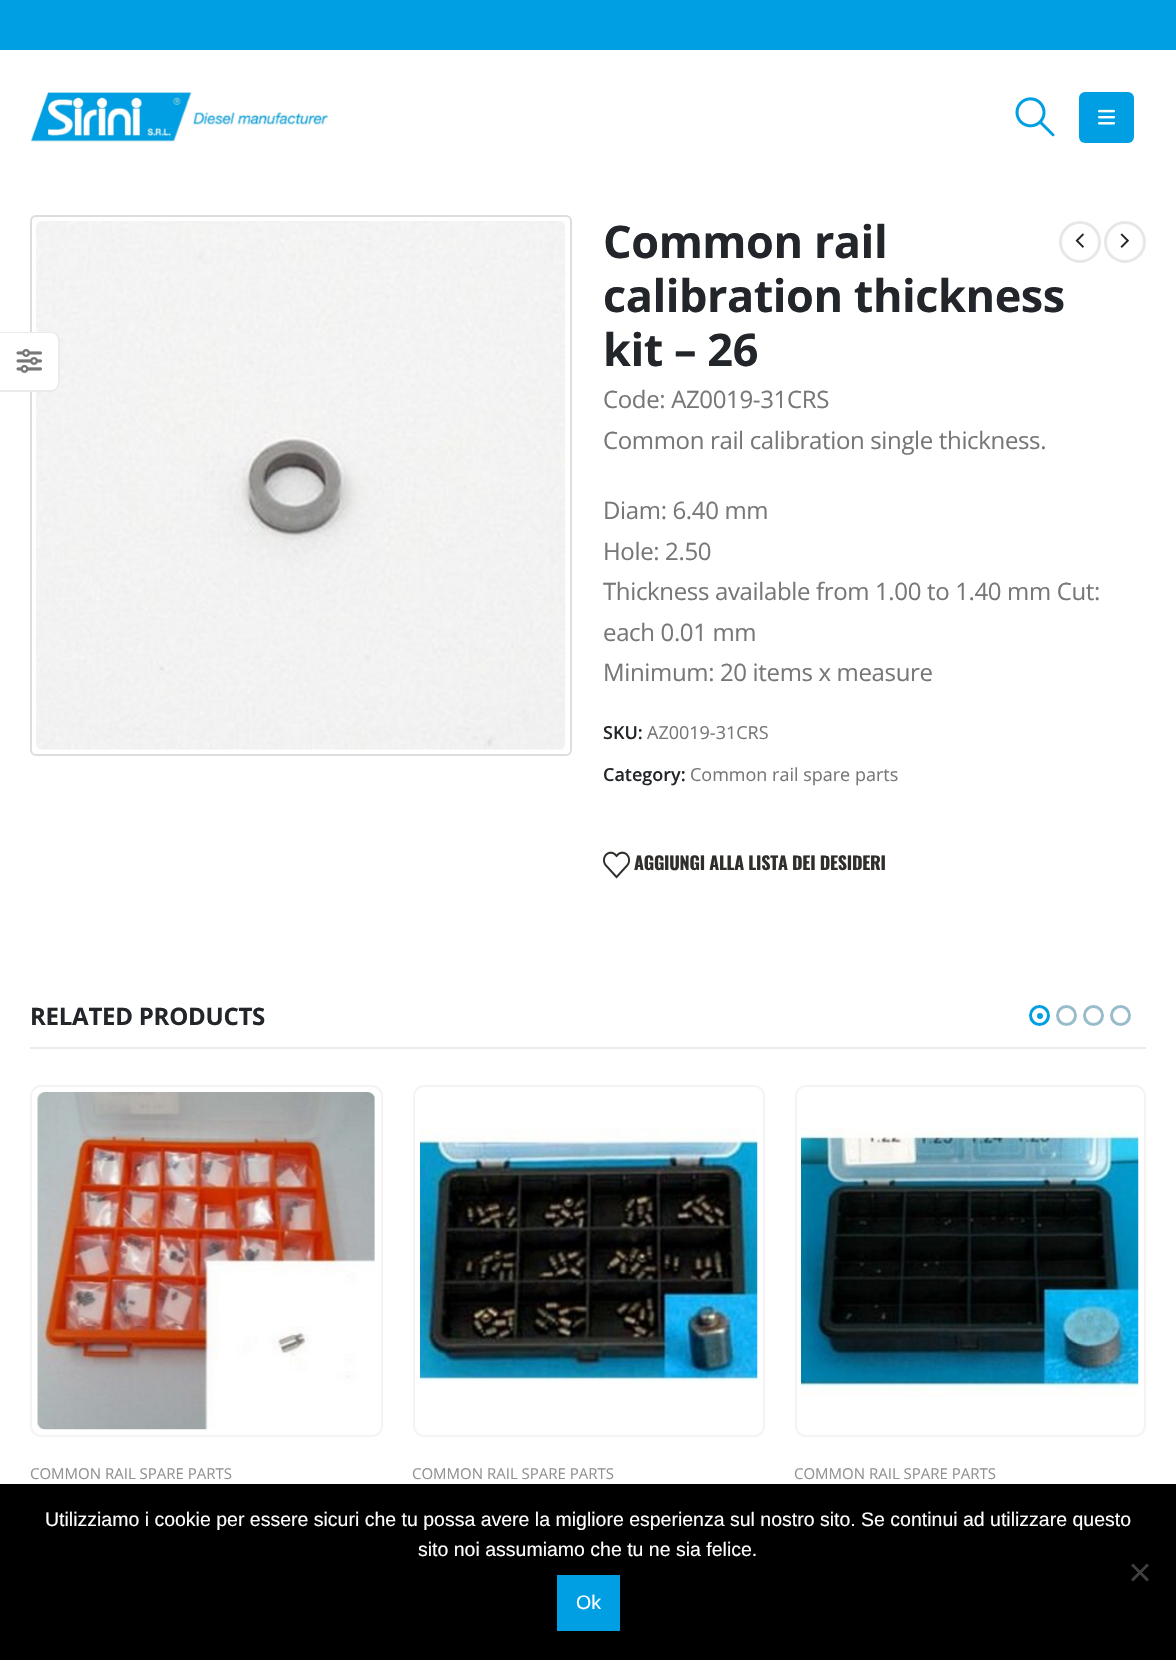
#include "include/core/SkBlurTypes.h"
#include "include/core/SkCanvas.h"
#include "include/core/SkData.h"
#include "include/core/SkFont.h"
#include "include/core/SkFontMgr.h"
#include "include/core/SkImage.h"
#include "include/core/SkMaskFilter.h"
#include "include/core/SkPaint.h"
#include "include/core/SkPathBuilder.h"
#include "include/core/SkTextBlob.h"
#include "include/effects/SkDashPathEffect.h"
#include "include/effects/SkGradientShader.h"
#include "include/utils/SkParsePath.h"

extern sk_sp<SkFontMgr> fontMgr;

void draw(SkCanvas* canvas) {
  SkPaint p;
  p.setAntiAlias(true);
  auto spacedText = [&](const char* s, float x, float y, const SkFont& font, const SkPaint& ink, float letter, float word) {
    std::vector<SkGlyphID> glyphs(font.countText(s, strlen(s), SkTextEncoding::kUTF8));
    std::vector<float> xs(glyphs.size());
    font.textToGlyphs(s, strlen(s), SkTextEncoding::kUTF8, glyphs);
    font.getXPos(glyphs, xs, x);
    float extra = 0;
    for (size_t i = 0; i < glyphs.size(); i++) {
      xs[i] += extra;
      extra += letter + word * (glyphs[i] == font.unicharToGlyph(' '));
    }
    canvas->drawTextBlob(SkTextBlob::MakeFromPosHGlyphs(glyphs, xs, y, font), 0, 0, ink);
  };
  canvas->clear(SK_ColorWHITE);
  p.setColor(SkColorSetRGB(0, 159, 227));
  canvas->drawRect(SkRect::MakeLTRB(0, 0, 1176, 50), p);
  canvas->drawImageRect(SkImages::DeferredFromEncodedData(SkData::MakeFromFileName("images/1.png")), SkRect::MakeLTRB(30, 92, 329, 142), SkSamplingOptions());
  canvas->drawImageRect(SkImages::DeferredFromEncodedData(SkData::MakeFromFileName("images/2.png")), SkRect::MakeLTRB(1015, 97, 1055, 137), SkSamplingOptions());
  canvas->drawRoundRect(SkRect::MakeLTRB(1079, 92, 1134, 143), 6, 6, p);
  canvas->drawImageRect(SkImages::DeferredFromEncodedData(SkData::MakeFromFileName("images/3.png")), SkRect::MakeLTRB(1098, 109, 1115, 125), SkSamplingOptions());
  p.setStyle(SkPaint::kStroke_Style);
  p.setStrokeWidth(2);
  p.setColor(SkColorSetRGB(221, 221, 221));
  canvas->drawRoundRect(SkRect::MakeLTRB(31, 216, 571, 755), 5, 5, p);
  canvas->drawImageRect(SkImages::DeferredFromEncodedData(SkData::MakeFromFileName("images/5.png")), SkRect::MakeLTRB(36, 221, 566, 750), SkSamplingOptions());
  p.setStyle(SkPaint::kFill_Style);
  p.setColor(SK_ColorWHITE);
  canvas->drawPath(SkPathBuilder().moveTo(0, 332).lineTo(51, 332).cubicTo(56, 332, 60, 336, 60, 341).lineTo(60, 383).cubicTo(60, 388, 56, 392, 51, 392).lineTo(0, 392).close().detach(), p);
  p.setColor(SkColorSetARGB(20, 0, 0, 0));
  canvas->drawPath(SkPathBuilder(SkPathFillType::kEvenOdd).moveTo(0, 332).lineTo(51, 332).cubicTo(56, 332, 60, 336, 60, 340).lineTo(60, 382).cubicTo(60, 387, 56, 392, 51, 392).lineTo(0, 392).close().moveTo(0, 333).lineTo(51, 333).cubicTo(55, 333, 58, 336, 58, 340).lineTo(58, 382).cubicTo(58, 387, 55, 390, 51, 390).lineTo(0, 390).close().detach(), p);
  canvas->drawImageRect(SkImages::DeferredFromEncodedData(SkData::MakeFromFileName("images/4.png")), SkRect::MakeLTRB(16, 349, 42, 373), SkSamplingOptions());
  p.setStyle(SkPaint::kStroke_Style);
  p.setStrokeWidth(3);
  p.setColor(SkColorSetRGB(231, 231, 231));
  canvas->drawCircle(1080, 242, 19.5f, p);
  canvas->drawImageRect(SkImages::DeferredFromEncodedData(SkData::MakeFromFileName("images/6.png")), SkRect::MakeLTRB(1075, 233, 1084, 248), SkSamplingOptions());
  canvas->drawCircle(1125, 242, 19.5f, p);
  canvas->drawImageRect(SkImages::DeferredFromEncodedData(SkData::MakeFromFileName("images/7.png")), SkRect::MakeLTRB(1120, 233, 1129, 248), SkSamplingOptions());
  canvas->drawImageRect(SkImages::DeferredFromEncodedData(SkData::MakeFromFileName("images/8.png")), SkRect::MakeLTRB(603, 851, 630, 879), SkSamplingOptions());
  p.setStyle(SkPaint::kFill_Style);
  p.setColor(SkColorSetRGB(235, 235, 235));
  canvas->drawRect(SkRect::MakeLTRB(30, 1047, 1146, 1049), p);
  p.setStyle(SkPaint::kStroke_Style);
  p.setColor(SkColorSetRGB(0, 159, 227));
  canvas->drawCircle(1039.5f, 1015.5f, 9, p);
  p.setStyle(SkPaint::kFill_Style);
  canvas->drawCircle(1040, 1016, 3, p);
  p.setStyle(SkPaint::kStroke_Style);
  p.setColor(SkColorSetRGB(153, 188, 203));
  canvas->drawCircle(1066.5f, 1015.5f, 9, p);
  canvas->drawCircle(1093.5f, 1015.5f, 9, p);
  canvas->drawCircle(1120.5f, 1015.5f, 9, p);
  p.setStrokeWidth(2);
  p.setColor(SkColorSetRGB(244, 244, 244));
  canvas->drawRoundRect(SkRect::MakeLTRB(31, 1086, 382, 1436), 10, 10, p);
  canvas->drawImageRect(SkImages::DeferredFromEncodedData(SkData::MakeFromFileName("images/9.png")), SkRect::MakeLTRB(37, 1092, 375, 1430), SkSamplingOptions());
  canvas->drawRoundRect(SkRect::MakeLTRB(414, 1086, 764, 1436), 10, 10, p);
  canvas->drawImageRect(SkImages::DeferredFromEncodedData(SkData::MakeFromFileName("images/10.png")), SkRect::MakeLTRB(420, 1128, 758, 1381), SkSamplingOptions());
  canvas->drawRoundRect(SkRect::MakeLTRB(796, 1086, 1145, 1436), 10, 10, p);
  canvas->drawImageRect(SkImages::DeferredFromEncodedData(SkData::MakeFromFileName("images/11.png")), SkRect::MakeLTRB(801, 1128, 1139, 1398), SkSamplingOptions());
  p.setStyle(SkPaint::kFill_Style);
  p.setColor(SK_ColorBLACK);
  canvas->drawRect(SkRect::MakeLTRB(0, 1484, 1176, 1660), p);
  p.setColor(SkColorSetRGB(64, 64, 64));
  canvas->drawPath(SkPathBuilder().moveTo(1147, 1563.5f).lineTo(1149, 1565.5f).lineTo(1133, 1581.5f).lineTo(1131, 1579.5f).close().detach(), p);
  canvas->drawPath(SkPathBuilder().moveTo(1131, 1565.5f).lineTo(1133, 1563.5f).lineTo(1149, 1579.5f).lineTo(1147, 1581.5f).close().detach(), p);
  p.setColor(SkColorSetRGB(0, 159, 227));
  canvas->drawRect(SkRect::MakeLTRB(557, 1575, 620, 1631), p);
  SkFont font1(fontMgr->matchFamilyStyle("Open Sans", SkFontStyle::Bold()), 45);
  font1.setSubpixel(true);
  p.setColor(SkColorSetRGB(34, 37, 41));
  spacedText("Common rail", 603, 258, font1, p, -0.45f, 0);
  spacedText("calibration thickness", 603, 312, font1, p, -0.45f, 0);
  spacedText("kit – 26", 603, 366, font1, p, -0.45f, 0);
  SkFont font2(fontMgr->matchFamilyStyle("Open Sans", SkFontStyle::Normal()), 24);
  font2.setSubpixel(true);
  p.setColor(SkColorSetRGB(119, 119, 119));
  spacedText("Code: AZ0019-31CRS", 603, 408, font2, p, -0.35f, 0);
  spacedText("Common rail calibration single thickness.", 603, 449, font2, p, -0.35f, 0);
  spacedText("Diam: 6.40 mm", 603, 519, font2, p, -0.35f, 0);
  spacedText("Hole: 2.50", 603, 560, font2, p, -0.35f, 0);
  spacedText("Thickness available from 1.00 to 1.40 mm Cut:", 603, 600, font2, p, -0.35f, 0);
  spacedText("each 0.01 mm", 603, 641, font2, p, -0.35f, 0);
  spacedText("Minimum: 20 items x measure", 603, 681, font2, p, -0.35f, 0);
  SkFont font3(fontMgr->matchFamilyStyle("Open Sans", SkFontStyle(600, SkFontStyle::kNormal_Width, SkFontStyle::kUpright_Slant)), 18);
  font3.setSubpixel(true);
  p.setColor(SkColorSetRGB(34, 37, 41));
  canvas->drawString("SKU:", 603, 739, font3, p);
  SkFont font4(fontMgr->matchFamilyStyle("Open Sans", SkFontStyle::Normal()), 18);
  font4.setSubpixel(true);
  p.setColor(SkColorSetRGB(119, 119, 119));
  canvas->drawString("AZ0019-31CRS", 647, 739, font4, p);
  p.setColor(SkColorSetRGB(34, 37, 41));
  canvas->drawString("Category:", 603, 781, font3, p);
  p.setColor(SkColorSetRGB(119, 119, 119));
  canvas->drawString("Common rail spare parts", 690, 781, font4, p);
  SkFont font5(fontMgr->matchFamilyStyle("Oswald", SkFontStyle::Bold()), 18);
  font5.setSubpixel(true);
  p.setColor(SkColorSetRGB(48, 46, 42));
  spacedText("AGGIUNGI ALLA LISTA DEI DESIDERI", 634, 870, font5, p, -0.25f, 0);
  SkFont font6(fontMgr->matchFamilyStyle("Open Sans", SkFontStyle::Bold()), 24);
  font6.setSubpixel(true);
  p.setColor(SkColorSetRGB(34, 37, 41));
  spacedText("RELATED PRODUCTS", 30, 1025, font6, p, -0.25f, 0);
  SkFont font7(fontMgr->matchFamilyStyle("Open Sans", SkFontStyle::Normal()), 15);
  font7.setSubpixel(true);
  p.setColor(SkColorSetRGB(146, 146, 146));
  canvas->drawString("COMMON RAIL SPARE PARTS", 30, 1479, font7, p);
  canvas->drawString("COMMON RAIL SPARE PARTS", 412, 1479, font7, p);
  canvas->drawString("COMMON RAIL SPARE PARTS", 794, 1479, font7, p);
  SkFont font8(fontMgr->matchFamilyStyle("Liberation Sans", SkFontStyle::Normal()), 19.5f);
  font8.setSubpixel(true);
  p.setColor(SK_ColorWHITE);
  canvas->drawString("Utilizziamo i cookie per essere sicuri che tu possa avere la migliore esperienza sul nostro sito. Se continui ad utilizzare questo", 45, 1526, font8, p);
  canvas->drawString("sito noi assumiamo che tu ne sia felice.", 418, 1556, font8, p);
  canvas->drawString("Ok", 576, 1609, font8, p);
}
